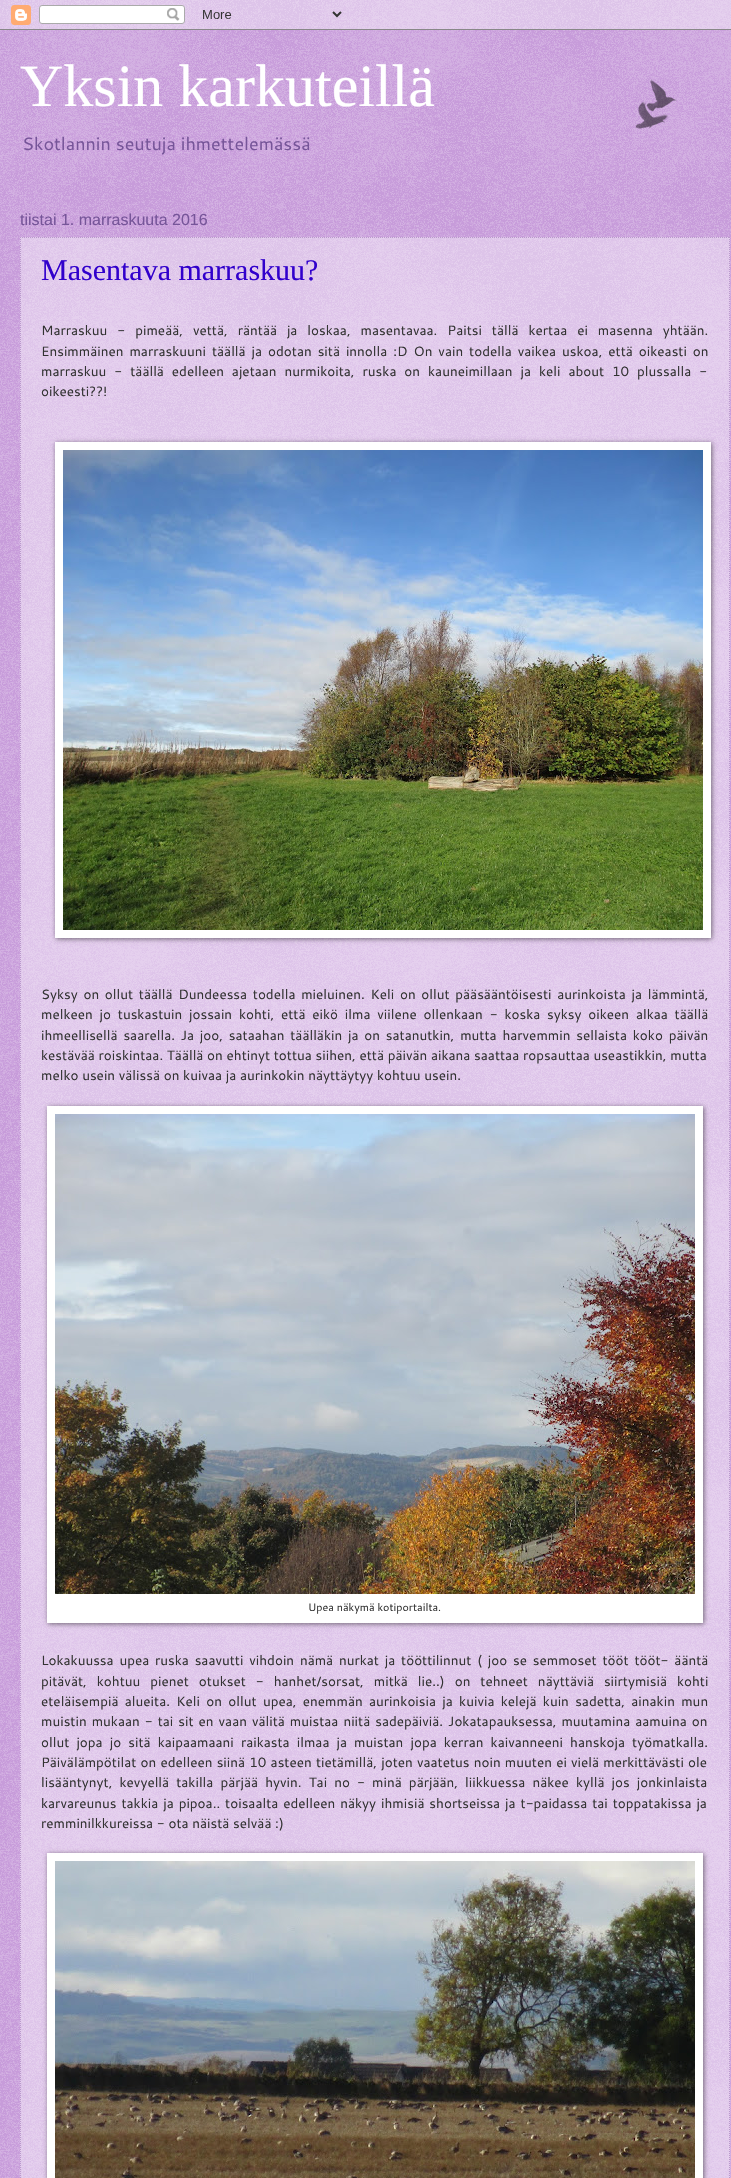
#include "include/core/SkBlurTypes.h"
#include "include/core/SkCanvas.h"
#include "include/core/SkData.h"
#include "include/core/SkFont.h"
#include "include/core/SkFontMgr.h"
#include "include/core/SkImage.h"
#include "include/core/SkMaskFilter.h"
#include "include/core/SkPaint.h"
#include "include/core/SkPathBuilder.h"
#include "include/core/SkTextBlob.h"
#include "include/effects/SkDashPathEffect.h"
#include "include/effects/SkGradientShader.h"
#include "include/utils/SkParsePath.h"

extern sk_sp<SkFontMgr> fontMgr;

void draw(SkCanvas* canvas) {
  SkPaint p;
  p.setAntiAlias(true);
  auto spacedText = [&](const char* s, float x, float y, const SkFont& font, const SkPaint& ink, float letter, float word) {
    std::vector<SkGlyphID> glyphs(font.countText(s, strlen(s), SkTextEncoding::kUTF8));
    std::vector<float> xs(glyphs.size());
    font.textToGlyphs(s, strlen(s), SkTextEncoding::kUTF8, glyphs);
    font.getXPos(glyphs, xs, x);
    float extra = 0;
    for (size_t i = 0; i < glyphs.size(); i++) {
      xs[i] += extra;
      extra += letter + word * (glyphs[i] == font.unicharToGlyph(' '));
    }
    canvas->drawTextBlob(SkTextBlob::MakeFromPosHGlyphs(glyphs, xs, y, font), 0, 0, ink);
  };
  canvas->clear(SkColorSetRGB(159, 84, 192));
  canvas->drawImageRect(SkImages::DeferredFromEncodedData(SkData::MakeFromFileName("images/1.png")), SkRect::MakeLTRB(0, 0, 731, 2178), SkSamplingOptions());
  canvas->drawImageRect(SkImages::DeferredFromEncodedData(SkData::MakeFromFileName("images/2.png")), SkRect::MakeLTRB(0, 0, 731, 30), SkSamplingOptions());
  p.setColor(SkColorSetARGB(102, 255, 255, 255));
  canvas->drawRect(SkRect::MakeLTRB(20, 237, 730, 2178), p);
  p.setStyle(SkPaint::kStroke_Style);
  p.setStrokeWidth(1);
  p.setColor(SkColorSetRGB(186, 153, 204));
  p.setPathEffect(SkDashPathEffect::Make({{1, 1}}, 0));
  canvas->drawPath(SkPathBuilder().moveTo(20, 237.5f).lineTo(730, 237.5f).detach(), p);
  p.setPathEffect(nullptr);
  p.setPathEffect(SkDashPathEffect::Make({{1, 1}}, 0));
  canvas->drawPath(SkPathBuilder().moveTo(729.5f, 237).lineTo(729.5f, 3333).detach(), p);
  p.setPathEffect(nullptr);
  p.setPathEffect(SkDashPathEffect::Make({{1, 1}}, 0));
  canvas->drawPath(SkPathBuilder().moveTo(20.5f, 237).lineTo(20.5f, 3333).detach(), p);
  p.setPathEffect(nullptr);
  p.setStyle(SkPaint::kFill_Style);
  p.setColor(SkColorSetARGB(128, 0, 0, 0));
  p.setMaskFilter(SkMaskFilter::MakeBlur(kNormal_SkBlurStyle, 2.5f));
  canvas->drawRect(SkRect::MakeLTRB(56, 443, 712, 939), p);
  p.setMaskFilter(nullptr);
  p.setColor(SK_ColorWHITE);
  canvas->drawRect(SkRect::MakeLTRB(55, 442, 711, 938), p);
  canvas->drawImageRect(SkImages::DeferredFromEncodedData(SkData::MakeFromFileName("images/3.png")), SkRect::MakeLTRB(63, 450, 703, 930), SkSamplingOptions());
  p.setColor(SkColorSetARGB(128, 0, 0, 0));
  p.setMaskFilter(SkMaskFilter::MakeBlur(kNormal_SkBlurStyle, 2.5f));
  canvas->drawRect(SkRect::MakeLTRB(48, 1107, 704, 1624), p);
  p.setMaskFilter(nullptr);
  p.setColor(SK_ColorWHITE);
  canvas->drawRect(SkRect::MakeLTRB(47, 1106, 703, 1623), p);
  canvas->drawImageRect(SkImages::DeferredFromEncodedData(SkData::MakeFromFileName("images/4.png")), SkRect::MakeLTRB(55, 1114, 695, 1594), SkSamplingOptions());
  p.setColor(SkColorSetARGB(128, 0, 0, 0));
  p.setMaskFilter(SkMaskFilter::MakeBlur(kNormal_SkBlurStyle, 2.5f));
  canvas->drawRect(SkRect::MakeLTRB(48, 1854, 704, 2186), p);
  p.setMaskFilter(nullptr);
  p.setColor(SK_ColorWHITE);
  canvas->drawRect(SkRect::MakeLTRB(47, 1853, 703, 2178), p);
  canvas->drawImageRect(SkImages::DeferredFromEncodedData(SkData::MakeFromFileName("images/5.png")), SkRect::MakeLTRB(55, 1861, 695, 2178), SkSamplingOptions());
  canvas->drawImageRect(SkImages::DeferredFromEncodedData(SkData::MakeFromFileName("images/6.png")), SkRect::MakeLTRB(635, 79, 677, 129), SkSamplingOptions());
  SkFont font1(fontMgr->matchFamilyStyle("Liberation Serif", SkFontStyle::Normal()), 60);
  font1.setSubpixel(true);
  canvas->drawString("Yksin karkuteillä", 20, 106, font1, p);
  SkFont font2(fontMgr->matchFamilyStyle("Cantarell", SkFontStyle::Normal()), 18);
  font2.setSubpixel(true);
  p.setColor(SkColorSetRGB(118, 85, 153));
  canvas->drawString("Skotlannin seutuja ihmettelemässä", 22, 150, font2, p);
  SkFont font3(fontMgr->matchFamilyStyle("Liberation Sans", SkFontStyle::Normal()), 16);
  font3.setSubpixel(true);
  canvas->drawString("tiistai 1. marraskuuta 2016", 20, 225, font3, p);
  SkFont font4(fontMgr->matchFamilyStyle("Liberation Serif", SkFontStyle::Normal()), 30);
  font4.setSubpixel(true);
  p.setColor(SkColorSetRGB(49, 0, 204));
  canvas->drawString("Masentava marraskuu?", 41, 280, font4, p);
  SkFont font5(fontMgr->matchFamilyStyle("Cantarell", SkFontStyle::Normal()), 13.5f);
  font5.setSubpixel(true);
  p.setColor(SkColorSetRGB(51, 51, 51));
  spacedText("Marraskuu - pimeää, vettä, räntää ja loskaa, masentavaa. Paitsi tällä kertaa ei masenna yhtään.", 41, 335, font5, p, 0, 6.25f);
  spacedText("Ensimmäinen marraskuuni täällä ja odotan sitä innolla :D On vain todella vaikea uskoa, että oikeasti on", 41, 356, font5, p, 0, 2.25f);
  spacedText("marraskuu - täällä edelleen ajetaan nurmikoita, ruska on kauneimillaan ja keli about 10 plussalla -", 41, 376, font5, p, 0, 4.25f);
  canvas->drawString("oikeesti?\077!", 41, 396, font5, p);
  spacedText("Syksy on ollut täällä Dundeessa todella mieluinen. Keli on ollut pääsääntöisesti aurinkoista ja lämmintä,", 41, 999, font5, p, 0, 2);
  spacedText("melkeen jo tuskastuin jossain kohti, että eikö ilma viilene ollenkaan - koska syksy oikeen alkaa täällä", 41, 1019, font5, p, 0, 3.1f);
  spacedText("ihmeellisellä saarella. Ja joo, sataahan täälläkin ja on satanutkin, mutta harvemmin sellaista koko päivän", 41, 1040, font5, p, 0, 2.1f);
  canvas->drawString("kestävää roiskintaa. Täällä on ehtinyt tottua siihen, että päivän aikana saattaa ropsauttaa useastikkin, mutta", 41, 1060, font5, p);
  canvas->drawString("melko usein välissä on kuivaa ja aurinkokin näyttäytyy kohtuu usein.", 41, 1080, font5, p);
  SkFont font6(fontMgr->matchFamilyStyle("Cantarell", SkFontStyle::Normal()), 10.75f);
  font6.setSubpixel(true);
  canvas->drawString("Upea näkymä kotiportailta.", 308, 1611, font6, p);
  spacedText("Lokakuussa upea ruska saavutti vihdoin nämä nurkat ja tööttilinnut ( joo se semmoset tööt tööt- ääntä", 41, 1665, font5, p, 0, 2.1f);
  spacedText("pitävät, kohtuu pienet otukset - hanhet/sorsat, mitkä lie..) on tehneet näyttäviä siirtymisiä kohti", 41, 1686, font5, p, 0, 6.25f);
  spacedText("eteläisempiä alueita. Keli on ollut upea, enemmän aurinkoisia ja kuivia kelejä kuin sadetta, ainakin mun", 41, 1706, font5, p, 0, 2.6f);
  spacedText("muistin mukaan - tai sit en vaan välitä muistaa niitä sadepäiviä. Jokatapauksessa, muutamina aamuina on", 41, 1726, font5, p, 0, 1.3f);
  spacedText("ollut jopa jo sitä kaipaamaani raikasta ilmaa ja muistan jopa kerran kaivanneeni hanskoja työmatkalla.", 41, 1747, font5, p, 0, 3.4f);
  spacedText("Päivälämpötilat on edelleen siinä 10 asteen tietämillä, joten vaatetus noin muuten ei vielä merkittävästi ole", 41, 1767, font5, p, 0, 0.5f);
  spacedText("lisääntynyt, kevyellä takilla pärjää hyvin. Tai no - minä pärjään, liikkuessa näkee kyllä jos jonkinlaista", 41, 1787, font5, p, 0, 3.4f);
  spacedText("karvareunus takkia ja pipoa.. toisaalta edelleen näkyy ihmisiä shortseissa ja t-paidassa tai toppatakissa ja", 41, 1808, font5, p, 0, 1.25f);
  canvas->drawString("remminilkkureissa - ota näistä selvää :)", 41, 1828, font5, p);
}
